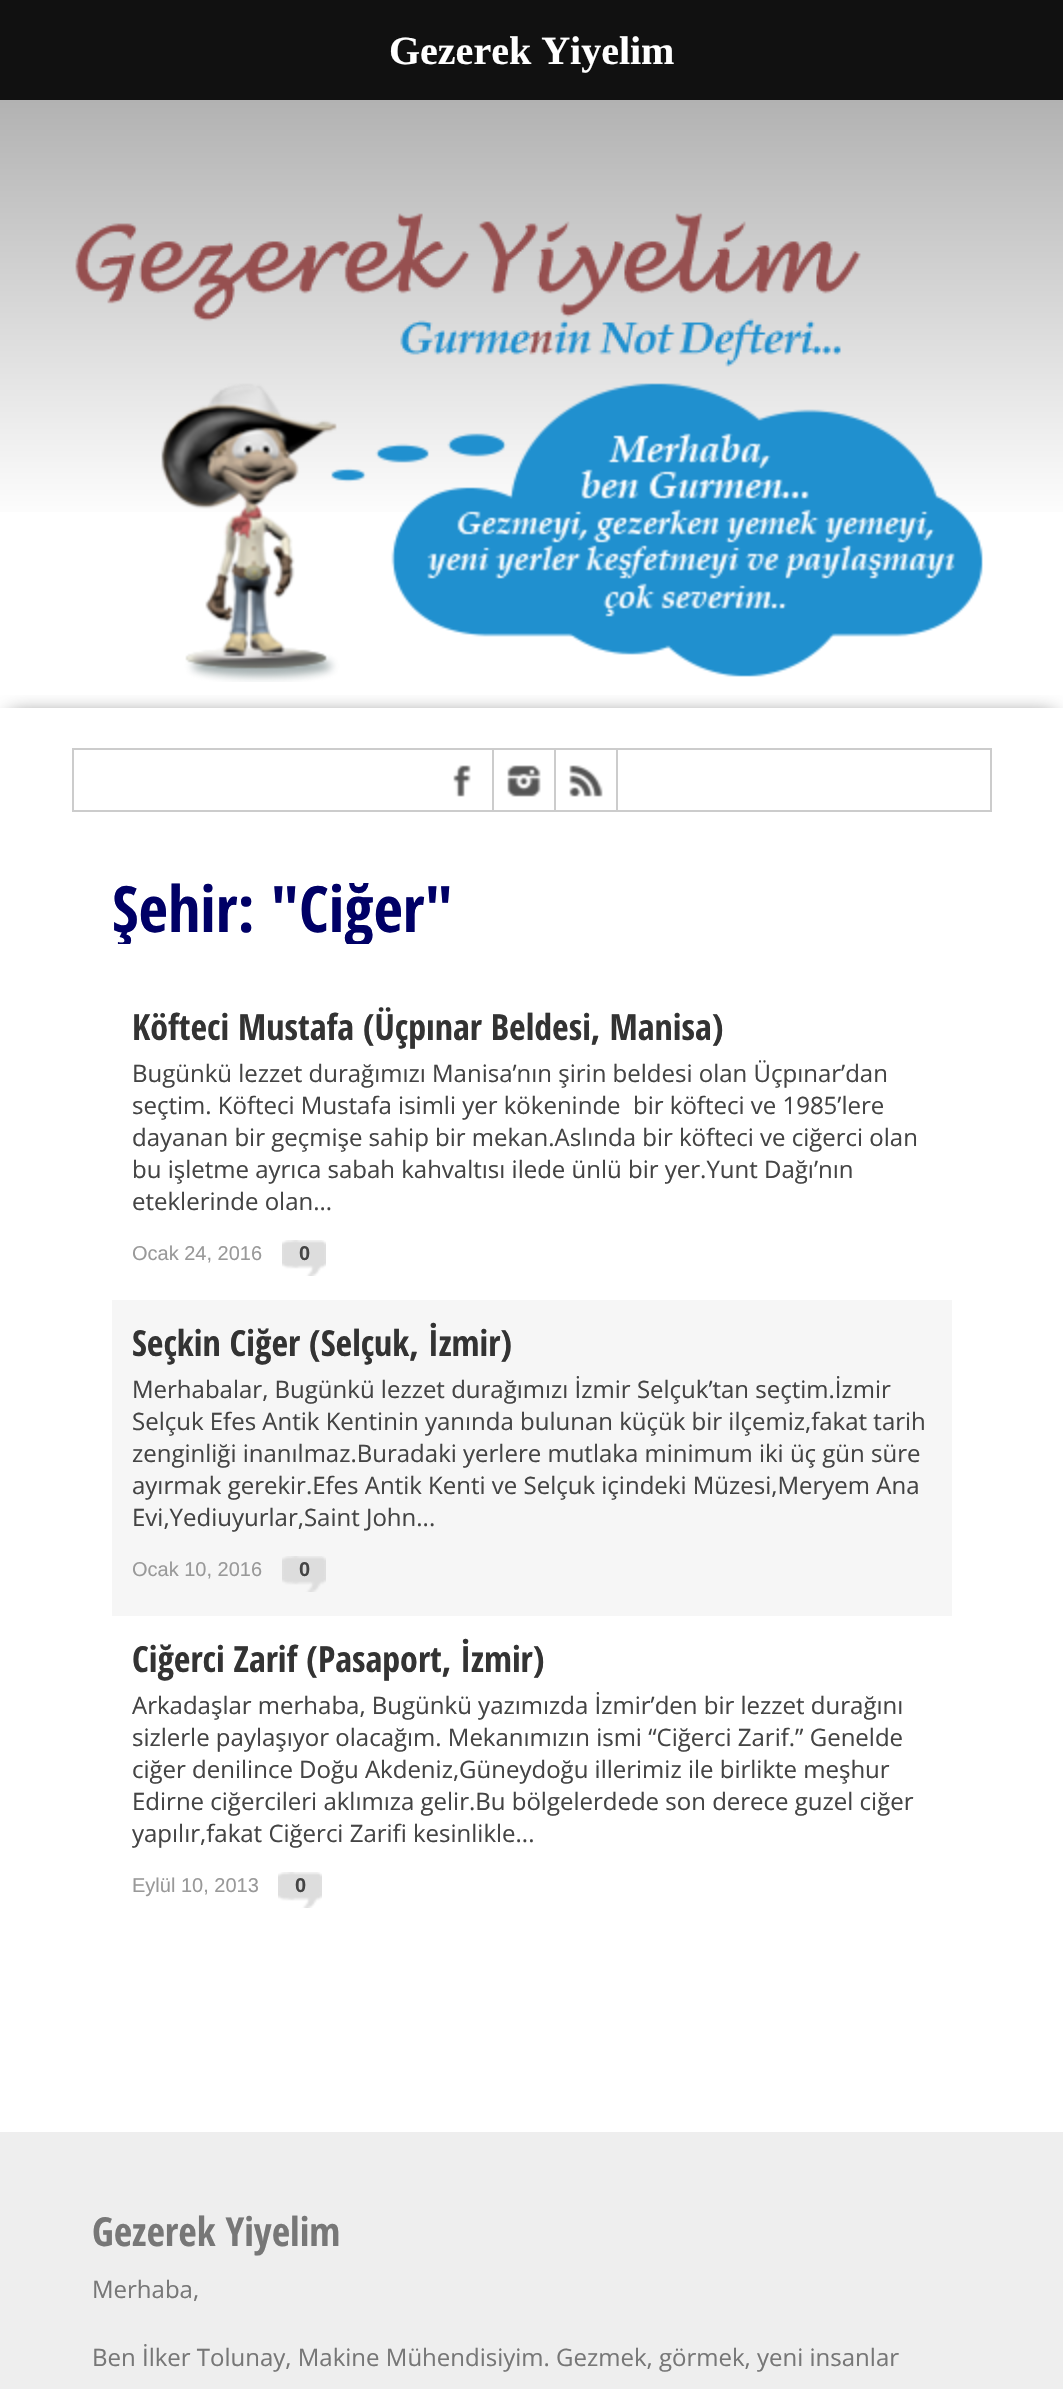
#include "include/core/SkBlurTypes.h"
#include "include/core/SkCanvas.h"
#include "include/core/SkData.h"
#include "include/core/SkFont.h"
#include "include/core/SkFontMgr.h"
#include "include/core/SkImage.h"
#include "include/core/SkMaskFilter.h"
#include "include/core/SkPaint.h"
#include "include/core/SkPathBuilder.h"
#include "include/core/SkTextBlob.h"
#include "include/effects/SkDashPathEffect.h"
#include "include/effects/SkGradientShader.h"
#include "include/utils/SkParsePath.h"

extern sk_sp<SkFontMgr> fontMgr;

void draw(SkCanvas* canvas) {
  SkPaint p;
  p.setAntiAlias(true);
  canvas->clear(SK_ColorWHITE);
  p.setColor(SkColorSetRGB(17, 17, 17));
  canvas->drawRect(SkRect::MakeLTRB(0, 0, 1063, 100), p);
  {
    const SkColor colors[] = {SkColorSetRGB(178, 178, 178), SK_ColorWHITE};
    const float stops[] = {0, 0.7f};
    const SkPoint ends[] = {{532, 100}, {532, 708}};
    p.setShader(SkGradientShader::MakeLinear(ends, colors, stops, 2, SkTileMode::kClamp));
    p.setAlpha(255);
  }
  canvas->drawRect(SkRect::MakeLTRB(0, 100, 1063, 512), p);
  canvas->drawImageRect(SkImages::DeferredFromEncodedData(SkData::MakeFromFileName("images/1.png")), SkRect::MakeLTRB(75, 212, 861, 367), SkSamplingOptions());
  canvas->drawImageRect(SkImages::DeferredFromEncodedData(SkData::MakeFromFileName("images/2.png")), SkRect::MakeLTRB(161, 383, 983, 682), SkSamplingOptions());
  canvas->save();
  canvas->clipRect(SkRect::MakeLTRB(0, 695, 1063, 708));
  p.setShader(nullptr);
  p.setColor(SkColorSetRGB(85, 85, 85));
  p.setMaskFilter(SkMaskFilter::MakeBlur(kNormal_SkBlurStyle, 10));
  canvas->drawRect(SkRect::MakeLTRB(10, 716, 1054, 2120), p);
  p.setMaskFilter(nullptr);
  canvas->restore();
  p.setStyle(SkPaint::kStroke_Style);
  p.setStrokeWidth(2);
  p.setColor(SkColorSetRGB(204, 204, 204));
  canvas->drawRect(SkRect::MakeLTRB(73, 749, 991, 811), p);
  canvas->drawImageRect(SkImages::DeferredFromEncodedData(SkData::MakeFromFileName("images/3.png")), SkRect::MakeLTRB(453, 765, 471, 797), SkSamplingOptions());
  p.setStyle(SkPaint::kFill_Style);
  canvas->drawRect(SkRect::MakeLTRB(492, 750, 494, 810), p);
  canvas->drawImageRect(SkImages::DeferredFromEncodedData(SkData::MakeFromFileName("images/4.png")), SkRect::MakeLTRB(507, 765, 541, 797), SkSamplingOptions());
  canvas->drawRect(SkRect::MakeLTRB(616, 750, 618, 810), p);
  canvas->drawRect(SkRect::MakeLTRB(554, 750, 556, 810), p);
  canvas->drawImageRect(SkImages::DeferredFromEncodedData(SkData::MakeFromFileName("images/5.png")), SkRect::MakeLTRB(569, 765, 603, 797), SkSamplingOptions());
  canvas->drawImageRect(SkImages::DeferredFromEncodedData(SkData::MakeFromFileName("images/6.png")), SkRect::MakeLTRB(282, 1240, 326, 1276), SkSamplingOptions());
  p.setColor(SkColorSetRGB(246, 246, 246));
  canvas->drawRect(SkRect::MakeLTRB(112, 1300, 952, 1616), p);
  canvas->drawImageRect(SkImages::DeferredFromEncodedData(SkData::MakeFromFileName("images/7.png")), SkRect::MakeLTRB(282, 1556, 326, 1592), SkSamplingOptions());
  canvas->drawImageRect(SkImages::DeferredFromEncodedData(SkData::MakeFromFileName("images/6.png")), SkRect::MakeLTRB(278, 1872, 322, 1908), SkSamplingOptions());
  p.setColor(SkColorSetRGB(238, 238, 238));
  canvas->drawRect(SkRect::MakeLTRB(0, 2132, 1063, 2389), p);
  SkFont font1(fontMgr->matchFamilyStyle("Liberation Serif", SkFontStyle::Bold()), 40);
  font1.setSubpixel(true);
  p.setColor(SK_ColorWHITE);
  canvas->drawString("Gezerek Yiyelim", 389, 64, font1, p);
  canvas->save();
  canvas->clipRect(SkRect::MakeLTRB(112, 872, 952, 944));
  SkFont font2(fontMgr->matchFamilyStyle("Open Sans Condensed", SkFontStyle::Bold()), 64);
  font2.setSubpixel(true);
  p.setColor(SkColorSetRGB(0, 0, 102));
  canvas->drawString("Şehir: \"Ciğer\"", 112, 932, font2, p);
  canvas->restore();
  SkFont font3(fontMgr->matchFamilyStyle("Open Sans Condensed", SkFontStyle::Bold()), 36);
  font3.setSubpixel(true);
  p.setColor(SkColorSetRGB(51, 51, 51));
  canvas->drawString("Köfteci Mustafa (Üçpınar Beldesi, Manisa)", 132, 1040, font3, p);
  SkFont font4(fontMgr->matchFamilyStyle("Open Sans", SkFontStyle::Normal()), 24);
  font4.setSubpixel(true);
  p.setColor(SkColorSetRGB(68, 68, 68));
  canvas->drawString("Bugünkü lezzet durağımızı Manisa’nın şirin beldesi olan Üçpınar’dan", 132, 1082, font4, p);
  canvas->drawString("seçtim. Köfteci Mustafa isimli yer kökeninde  bir köfteci ve 1985’lere", 132, 1114, font4, p);
  canvas->drawString("dayanan bir geçmişe sahip bir mekan.Aslında bir köfteci ve ciğerci olan", 132, 1146, font4, p);
  canvas->drawString("bu işletme ayrıca sabah kahvaltısı ilede ünlü bir yer.Yunt Dağı’nın", 132, 1178, font4, p);
  canvas->drawString("eteklerinde olan...", 132, 1210, font4, p);
  SkFont font5(fontMgr->matchFamilyStyle("Liberation Sans", SkFontStyle::Normal()), 20);
  font5.setSubpixel(true);
  p.setColor(SkColorSetRGB(153, 153, 153));
  canvas->drawString("Ocak 24, 2016", 132, 1260, font5, p);
  SkFont font6(fontMgr->matchFamilyStyle("Liberation Sans", SkFontStyle::Bold()), 20);
  font6.setSubpixel(true);
  p.setColor(SkColorSetRGB(68, 68, 68));
  canvas->drawString("0", 299, 1260, font6, p);
  p.setColor(SkColorSetRGB(51, 51, 51));
  canvas->drawString("Seçkin Ciğer (Selçuk, İzmir)", 132, 1356, font3, p);
  p.setColor(SkColorSetRGB(68, 68, 68));
  canvas->drawString("Merhabalar, Bugünkü lezzet durağımızı İzmir Selçuk’tan seçtim.İzmir", 132, 1398, font4, p);
  canvas->drawString("Selçuk Efes Antik Kentinin yanında bulunan küçük bir ilçemiz,fakat tarih", 132, 1430, font4, p);
  canvas->drawString("zenginliği inanılmaz.Buradaki yerlere mutlaka minimum iki üç gün süre", 132, 1462, font4, p);
  canvas->drawString("ayırmak gerekir.Efes Antik Kenti ve Selçuk içindeki Müzesi,Meryem Ana", 132, 1494, font4, p);
  canvas->drawString("Evi,Yediuyurlar,Saint John...", 132, 1526, font4, p);
  p.setColor(SkColorSetRGB(153, 153, 153));
  canvas->drawString("Ocak 10, 2016", 132, 1576, font5, p);
  p.setColor(SkColorSetRGB(68, 68, 68));
  canvas->drawString("0", 299, 1576, font6, p);
  p.setColor(SkColorSetRGB(51, 51, 51));
  canvas->drawString("Ciğerci Zarif (Pasaport, İzmir)", 132, 1672, font3, p);
  p.setColor(SkColorSetRGB(68, 68, 68));
  canvas->drawString("Arkadaşlar merhaba, Bugünkü yazımızda İzmir’den bir lezzet durağını", 132, 1714, font4, p);
  canvas->drawString("sizlerle paylaşıyor olacağım. Mekanımızın ismi “Ciğerci Zarif.” Genelde", 132, 1746, font4, p);
  canvas->drawString("ciğer denilince Doğu Akdeniz,Güneydoğu illerimiz ile birlikte meşhur", 132, 1778, font4, p);
  canvas->drawString("Edirne ciğercileri aklımıza gelir.Bu bölgelerdede son derece guzel ciğer", 132, 1810, font4, p);
  canvas->drawString("yapılır,fakat Ciğerci Zarifi kesinlikle...", 132, 1842, font4, p);
  p.setColor(SkColorSetRGB(153, 153, 153));
  canvas->drawString("Eylül 10, 2013", 132, 1892, font5, p);
  p.setColor(SkColorSetRGB(68, 68, 68));
  canvas->drawString("0", 295, 1892, font6, p);
  SkFont font7(fontMgr->matchFamilyStyle("Open Sans Condensed", SkFontStyle::Bold()), 40);
  font7.setSubpixel(true);
  p.setColor(SkColorSetRGB(119, 119, 119));
  canvas->drawString("Gezerek Yiyelim", 92, 2246, font7, p);
  canvas->drawString("Merhaba,", 92, 2298, font4, p);
  canvas->drawString("Ben İlker Tolunay, Makine Mühendisiyim. Gezmek, görmek, yeni insanlar", 92, 2366, font4, p);
}
